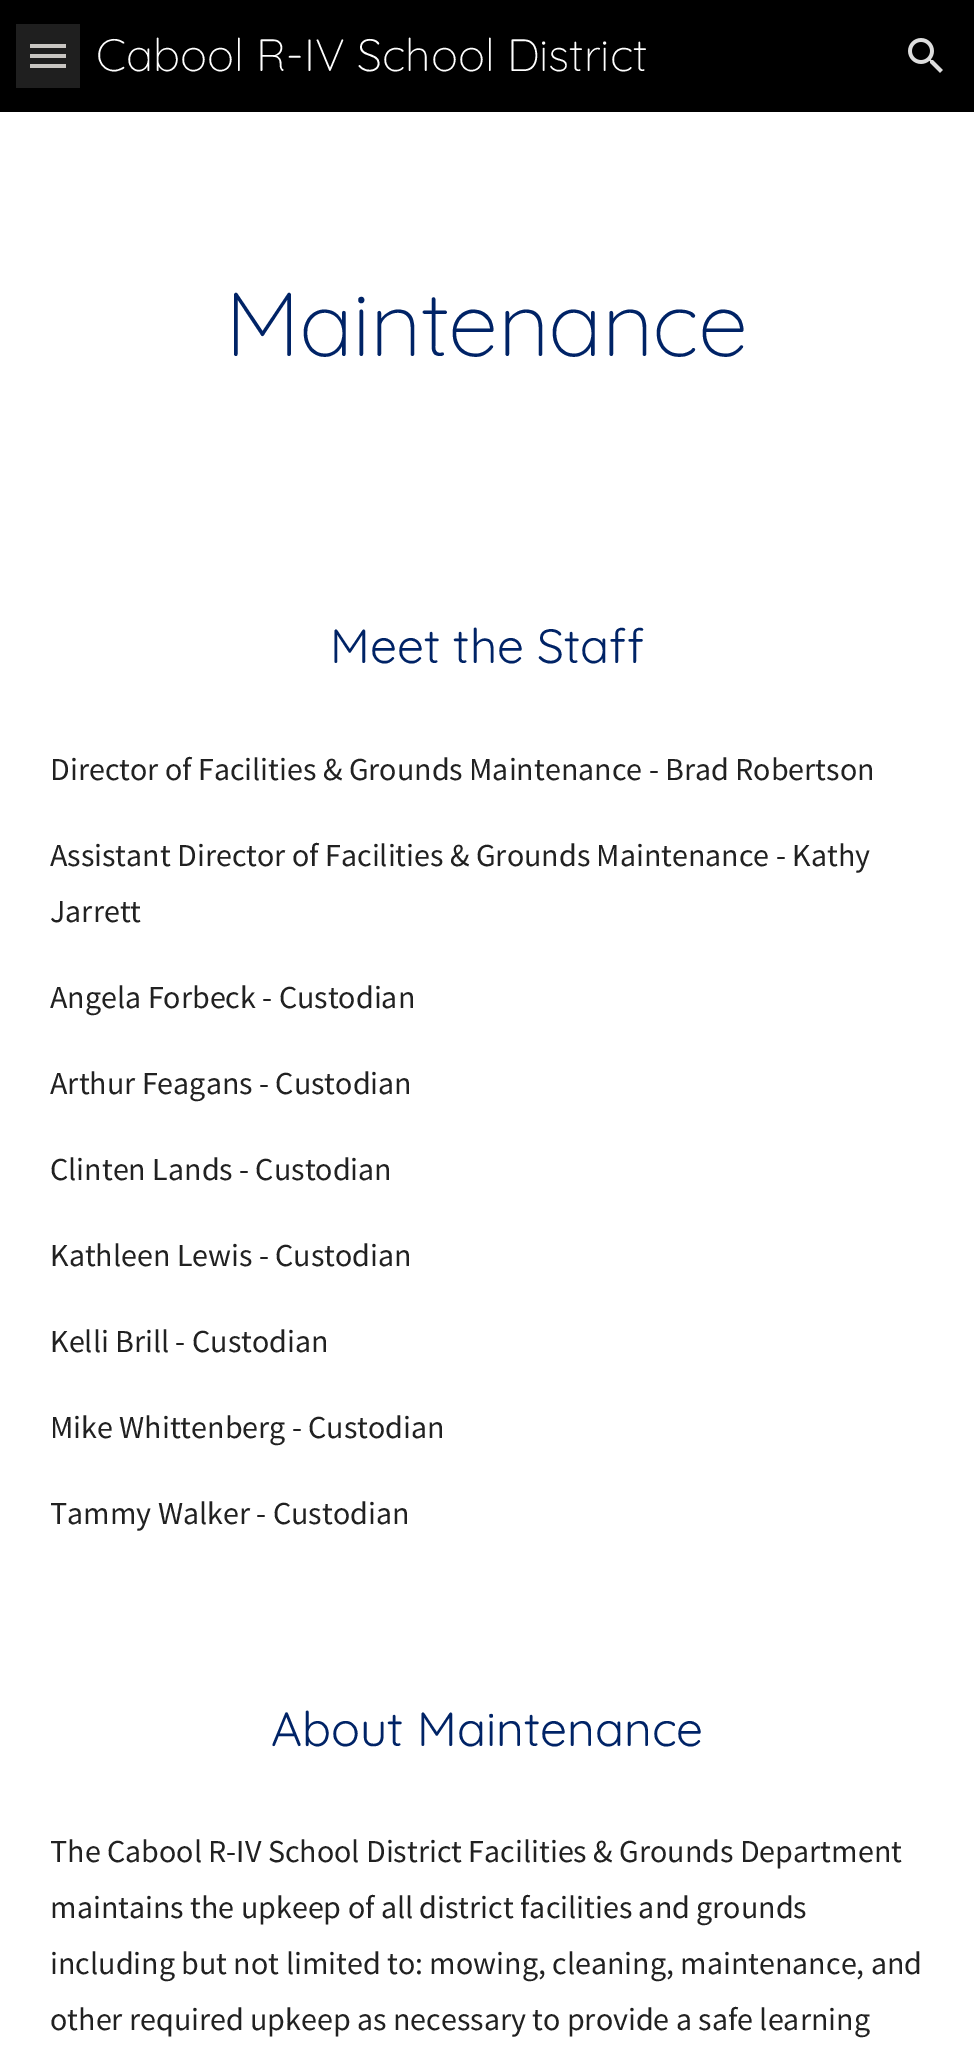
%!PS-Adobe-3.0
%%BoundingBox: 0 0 974 2047
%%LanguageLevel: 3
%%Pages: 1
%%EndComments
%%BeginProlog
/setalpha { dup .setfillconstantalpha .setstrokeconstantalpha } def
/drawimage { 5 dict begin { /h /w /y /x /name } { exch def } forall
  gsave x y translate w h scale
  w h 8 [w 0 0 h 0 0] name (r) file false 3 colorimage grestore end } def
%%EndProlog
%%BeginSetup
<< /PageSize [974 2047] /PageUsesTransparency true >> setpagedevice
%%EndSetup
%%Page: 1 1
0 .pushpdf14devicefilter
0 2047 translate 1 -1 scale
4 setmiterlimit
1 setgray
0 0 974 2047 rectfill
0 setgray
0 0 974 112 rectfill
0.753 0.741 0.722 setrgbcolor
30 44 36 4 rectfill
30 54 36 4 rectfill
30 64 36 4 rectfill
0.12 setalpha
1 setgray
16 24 64 64 rectfill
1 setalpha
(images/1.raw) 908 38 35 35 drawimage
/Quicksand-Light [45.25 0 0 -45.25 0 0] selectfont
96 71 moveto (Cabool R-IV School District) show
/Quicksand-Light [90.5 0 0 -90.5 0 0] selectfont
0 0.137 0.4 setrgbcolor
225 356 moveto -1 0 (Maintenance) ashow
/Quicksand-Regular [48 0 0 -48 0 0] selectfont
330 663 moveto (Meet the Staff) show
/SourceSansPro-Regular [32 0 0 -32 0 0] selectfont
0.129 setgray
50 780 moveto (Director of Facilities & Grounds Maintenance - Brad Robertson) show
50 866 moveto (Assistant Director of Facilities & Grounds Maintenance - Kathy) show
50 922 moveto (Jarrett) show
50 1008 moveto (Angela Forbeck - Custodian) show
50 1094 moveto (Arthur Feagans - Custodian) show
50 1180 moveto (Clinten Lands - Custodian) show
50 1266 moveto (Kathleen Lewis - Custodian) show
50 1352 moveto (Kelli Brill - Custodian) show
50 1438 moveto (Mike Whittenberg - Custodian) show
50 1524 moveto (Tammy Walker - Custodian) show
/Quicksand-Regular [48 0 0 -48 0 0] selectfont
0 0.137 0.4 setrgbcolor
271 1746 moveto (About Maintenance) show
/SourceSansPro-Regular [32 0 0 -32 0 0] selectfont
0.129 setgray
50 1862 moveto (The Cabool R-IV School District Facilities & Grounds Department) show
50 1918 moveto (maintains the upkeep of all district facilities and grounds) show
50 1974 moveto (including but not limited to: mowing, cleaning, maintenance, and) show
50 2030 moveto (other required upkeep as necessary to provide a safe learning) show
.poppdf14devicefilter showpage
%%EOF
